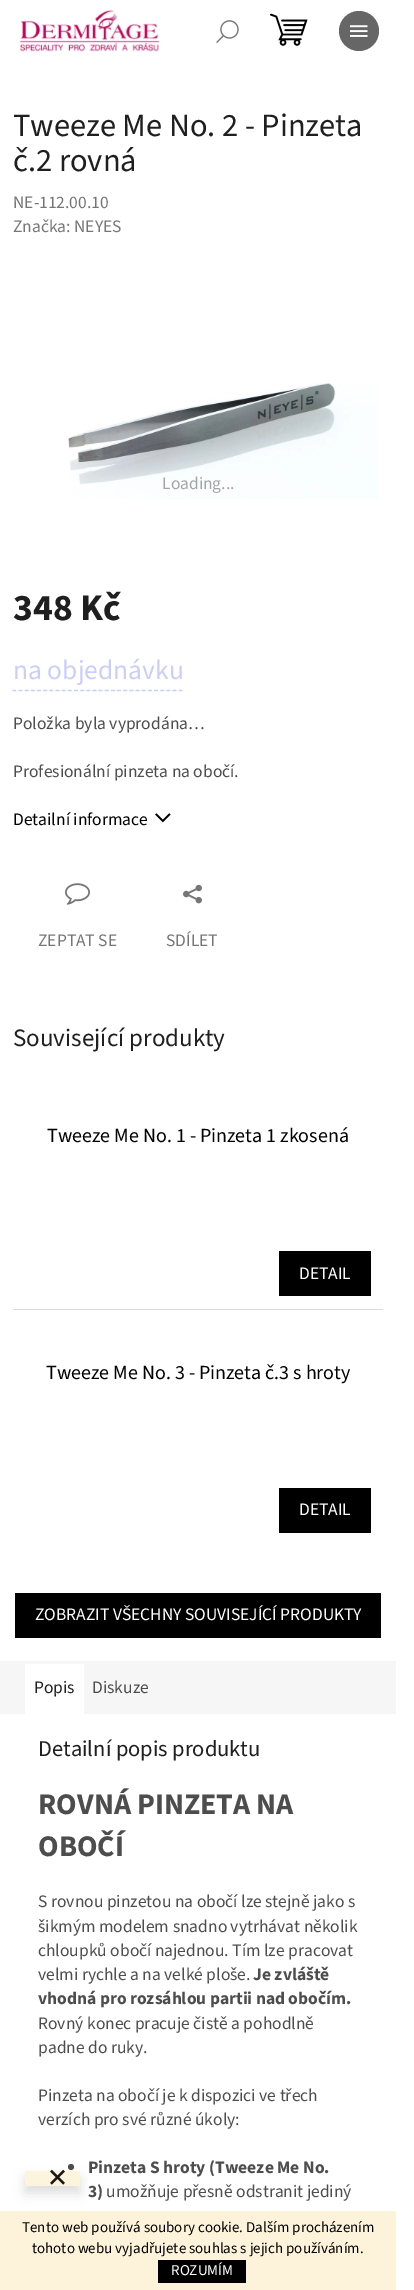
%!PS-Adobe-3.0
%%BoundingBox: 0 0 414 2290
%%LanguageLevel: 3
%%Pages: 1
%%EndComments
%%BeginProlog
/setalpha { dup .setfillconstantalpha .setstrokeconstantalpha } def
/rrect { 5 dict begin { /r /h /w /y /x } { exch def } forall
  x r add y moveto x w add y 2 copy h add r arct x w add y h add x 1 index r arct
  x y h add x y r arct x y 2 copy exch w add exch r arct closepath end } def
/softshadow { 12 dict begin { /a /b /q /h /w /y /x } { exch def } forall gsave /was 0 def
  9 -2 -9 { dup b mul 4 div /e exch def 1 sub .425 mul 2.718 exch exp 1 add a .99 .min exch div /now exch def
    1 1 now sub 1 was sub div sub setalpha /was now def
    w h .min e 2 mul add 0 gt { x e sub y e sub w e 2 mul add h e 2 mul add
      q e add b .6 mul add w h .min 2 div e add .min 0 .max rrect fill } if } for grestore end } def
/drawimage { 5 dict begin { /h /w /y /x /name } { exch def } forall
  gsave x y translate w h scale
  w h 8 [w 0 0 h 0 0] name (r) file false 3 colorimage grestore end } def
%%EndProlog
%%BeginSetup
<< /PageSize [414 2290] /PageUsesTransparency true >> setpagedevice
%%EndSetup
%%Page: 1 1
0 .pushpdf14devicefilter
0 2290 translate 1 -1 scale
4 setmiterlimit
1 setgray
0 0 414 2290 rectfill
(images/1.raw) 20 10 140 42 drawimage
(images/2.raw) 270 13 38 33 drawimage
(images/3.raw) 216 20 23 23 drawimage
0.4 setgray
newpath 359 31 20 0 360 arc closepath fill
(images/4.raw) 350 25 18 12 drawimage
(images/5.raw) 68 383 310 116 drawimage
0.796 0.808 0.984 setrgbcolor
1.2 setlinewidth
[3.75 2.41] 0 setdash
newpath 12.5 690.5 moveto 182.5 690.5 lineto stroke
(images/6.raw) 155 813 16 10 drawimage
(images/7.raw) 65 883 25 22 drawimage
(images/8.raw) 183 884 19 20 drawimage
0 setgray
279 1251 92 45 rectfill
0.855 setgray
13 1309 371 1 rectfill
1 setgray
383 1309 1 1 rectfill
0 setgray
279 1488 92 45 rectfill
15 1593 366 45 rectfill
0.965 setgray
0 1661 396 53 rectfill
1 setgray
25 1664 59 50 rectfill
0.302 setgray
newpath 71 2167 3 0 360 arc closepath fill
0 setgray
25 2178 55 15 0 6 0.14 softshadow
0.992 0.957 0.871 setrgbcolor
25 2171 55 15 rectfill
(images/9.raw) 50 2169 15 16 drawimage
0.992 0.953 0.855 setrgbcolor
0 2211 396 79 rectfill
0 setgray
158 2260 88 23 rectfill
/SourceSans3-Regular [32.5 0 0 -32.5 0 0] selectfont
0.122 setgray
13 136 moveto (Tweeze Me No. 2 - Pinzeta) show
13 171 moveto (č.2 rovná) show
/SourceSans3-Regular [17.5 0 0 -17.5 0 0] selectfont
0.463 setgray
13 208 moveto (NE-112.00.10) show
13 232 moveto (Značka: NEYES) show
0.643 0.647 0.651 setrgbcolor
162 489 moveto (Loading...) show
/SourceSans3-Bold [37.5 0 0 -37.5 0 0] selectfont
0.122 setgray
13 620 moveto (348 Kč) show
/SourceSans3-Regular [27.5 0 0 -27.5 0 0] selectfont
0.796 0.808 0.984 setrgbcolor
13 679 moveto (na objednávku) show
/SourceSans3-Regular [17.5 0 0 -17.5 0 0] selectfont
0.302 setgray
13 729 moveto (Položka byla vyprodána…) show
13 777 moveto (Profesionální pinzeta na obočí.) show
0 setgray
13 825 moveto (Detailní informace) show
0.463 setgray
38 946 moveto (ZEPTAT SE) show
166 946 moveto (SDÍLET) show
/SourceSans3-Regular [25 0 0 -25 0 0] selectfont
0.122 setgray
13 1046 moveto (Související produkty) show
/SourceSans3-Regular [20 0 0 -20 0 0] selectfont
0 setgray
47 1142 moveto (Tweeze Me No. 1 - Pinzeta 1 zkosená) show
/SourceSans3-Regular [17.5 0 0 -17.5 0 0] selectfont
1 setgray
299 1279 moveto (DETAIL) show
/SourceSans3-Regular [20 0 0 -20 0 0] selectfont
0 setgray
46 1379 moveto (Tweeze Me No. 3 - Pinzeta č.3 s hroty) show
/SourceSans3-Regular [17.5 0 0 -17.5 0 0] selectfont
1 setgray
299 1515 moveto (DETAIL) show
35 1620 moveto (ZOBRAZIT VŠECHNY SOUVISEJÍCÍ PRODUKTY) show
0.122 setgray
34 1693 moveto (Popis) show
0.302 setgray
92 1693 moveto (Diskuze) show
/SourceSans3-Regular [22.5 0 0 -22.5 0 0] selectfont
0.122 setgray
38 1756 moveto (Detailní popis produktu) show
/SourceSans3-Bold [30 0 0 -30 0 0] selectfont
0.302 setgray
38 1814 moveto (ROVNÁ PINZETA NA) show
38 1856 moveto (OBOČÍ) show
/SourceSans3-Regular [17.5 0 0 -17.5 0 0] selectfont
38 1907 moveto (S rovnou pinzetou na obočí lze stejně jako s) show
38 1932 moveto (šikmým modelem snadno vytrhávat několik) show
38 1956 moveto (chloupků obočí najednou. Tím lze pracovat) show
38 1980 moveto (velmi rychle a na velké ploše.) show
/SourceSans3-Bold [17.5 0 0 -17.5 0 0] selectfont
253 1980 moveto (Je zvláště) show
38 2004 moveto (vhodná pro rozsáhlou partii nad obočím.) show
/SourceSans3-Regular [17.5 0 0 -17.5 0 0] selectfont
38 2029 moveto (Rovný konec pracuje čistě a pohodlně) show
38 2053 moveto (padne do ruky.) show
38 2101 moveto (Pinzeta na obočí je k dispozici ve třech) show
38 2125 moveto (verzích pro své různé úkoly:) show
/SourceSans3-Bold [17.5 0 0 -17.5 0 0] selectfont
88 2173 moveto (Pinzeta S hroty \(Tweeze Me No.) show
88 2197 moveto (3\)) show
/SourceSans3-Regular [17.5 0 0 -17.5 0 0] selectfont
106 2197 moveto (umožňuje přesně odstranit jediný) show
/SourceSans3-Regular [15 0 0 -15 0 0] selectfont
0 setgray
22 2232 moveto (Tento web používá soubory cookie. Dalším procházením) show
32 2253 moveto (tohoto webu vyjadřujete souhlas s jejich používáním.) show
1 setgray
171 2275 moveto (ROZUMÍM) show
.poppdf14devicefilter showpage
%%EOF
